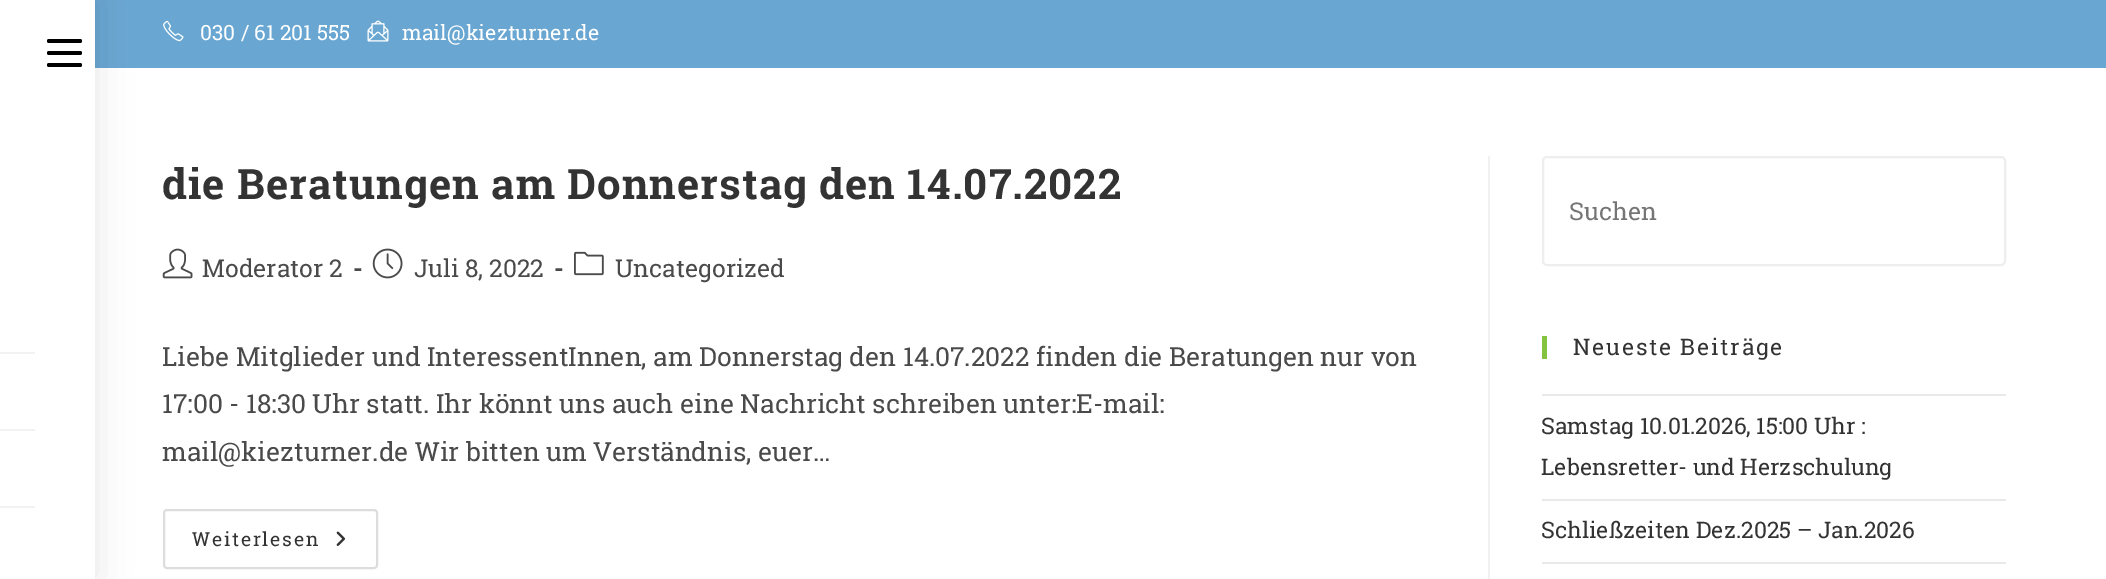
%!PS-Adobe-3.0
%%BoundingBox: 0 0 2106 579
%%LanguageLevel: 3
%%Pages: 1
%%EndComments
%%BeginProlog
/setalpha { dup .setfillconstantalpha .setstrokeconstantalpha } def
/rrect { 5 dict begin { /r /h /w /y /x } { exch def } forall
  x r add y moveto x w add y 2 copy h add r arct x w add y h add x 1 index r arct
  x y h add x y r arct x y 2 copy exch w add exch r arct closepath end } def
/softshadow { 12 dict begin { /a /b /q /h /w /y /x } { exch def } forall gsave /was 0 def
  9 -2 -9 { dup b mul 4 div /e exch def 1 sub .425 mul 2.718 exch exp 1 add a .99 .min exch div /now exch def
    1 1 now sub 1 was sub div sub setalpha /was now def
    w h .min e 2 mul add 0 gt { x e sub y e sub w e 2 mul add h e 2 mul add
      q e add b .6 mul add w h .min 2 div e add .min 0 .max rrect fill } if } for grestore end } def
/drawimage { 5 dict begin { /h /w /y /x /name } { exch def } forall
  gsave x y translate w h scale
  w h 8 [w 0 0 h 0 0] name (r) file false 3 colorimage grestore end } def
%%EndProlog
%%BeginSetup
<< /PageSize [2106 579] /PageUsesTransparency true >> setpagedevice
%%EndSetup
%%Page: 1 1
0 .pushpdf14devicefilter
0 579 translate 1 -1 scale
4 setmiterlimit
1 setgray
0 0 2106 579 rectfill
0.412 0.655 0.824 setrgbcolor
95 0 2011 68 rectfill
0 setgray
-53 0 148 579 0 17.5 0.1 softshadow
1 setgray
0 0 95 579 rectfill
0 setgray
47 51 35 4 2 rrect fill
47 39 35 4 2 rrect fill
47 63 35 4 2 rrect fill
0.949 setgray
0 352 35 2 rectfill
0 429 35 2 rectfill
0 506 35 2 rectfill
(images/1.raw) 163 20 21 22 drawimage
(images/2.raw) 367 20 22 22 drawimage
0.945 setgray
1488 156 2 423 rectfill
(images/3.raw) 162 248 31 31 drawimage
(images/4.raw) 372 248 31 31 drawimage
(images/5.raw) 574 251 30 25 drawimage
0.867 setgray
2 setlinewidth
164 510 213 58 3 rrect stroke
(images/6.raw) 336 531 10 15 drawimage
0.933 setgray
1543 157 462 108 4 rrect stroke
0.518 0.765 0.251 setrgbcolor
1542 336 5 23 rectfill
0.914 setgray
1542 394 464 2 rectfill
1542 499 464 2 rectfill
1542 562 464 2 rectfill
/RobotoSlab-Regular [21 0 0 -21 0 0] selectfont
1 setgray
200 40 moveto (030 / 61 201 555) show
402 40 moveto (mail@kiezturner.de) show
/RobotoSlab-Bold [42 0 0 -42 0 0] selectfont
0.2 setgray
162 199 moveto 1.05 0 (die Beratungen am Donnerstag den 14.07.2022) ashow
/RobotoSlab-Regular [24.5 0 0 -24.5 0 0] selectfont
0.29 setgray
202 277 moveto (Moderator 2) show
/RobotoSlab-Bold [24.5 0 0 -24.5 0 0] selectfont
353 277 moveto (-) show
/RobotoSlab-Regular [24.5 0 0 -24.5 0 0] selectfont
414 277 moveto (Juli 8, 2022) show
/RobotoSlab-Bold [24.5 0 0 -24.5 0 0] selectfont
554 277 moveto (-) show
/RobotoSlab-Regular [24.5 0 0 -24.5 0 0] selectfont
615 277 moveto (Uncategorized) show
/RobotoSlab-Regular [26.25 0 0 -26.25 0 0] selectfont
162 366 moveto (Liebe Mitglieder und InteressentInnen, am Donnerstag den 14.07.2022 finden die Beratungen nur von) show
162 413 moveto (17:00 - 18:30 Uhr statt. Ihr könnt uns auch eine Nachricht schreiben unter:E-mail:) show
162 461 moveto (mail@kiezturner.de Wir bitten um Verständnis, euer…) show
/RobotoSlab-Regular [19.25 0 0 -19.25 0 0] selectfont
0.2 setgray
192 546 moveto 1.75 0 (Weiterlesen) ashow
/RobotoSlab-Regular [24.5 0 0 -24.5 0 0] selectfont
0.459 setgray
1569 220 moveto (Suchen) show
/RobotoSlab-Regular [22.75 0 0 -22.75 0 0] selectfont
0.2 setgray
1573 355 moveto 1.75 0 (Neueste Beiträge) ashow
1541 434 moveto (Samstag 10.01.2026, 15:00 Uhr :) show
1541 475 moveto (Lebensretter- und Herzschulung) show
1541 538 moveto (Schließzeiten Dez.2025 – Jan.2026) show
.poppdf14devicefilter showpage
%%EOF
